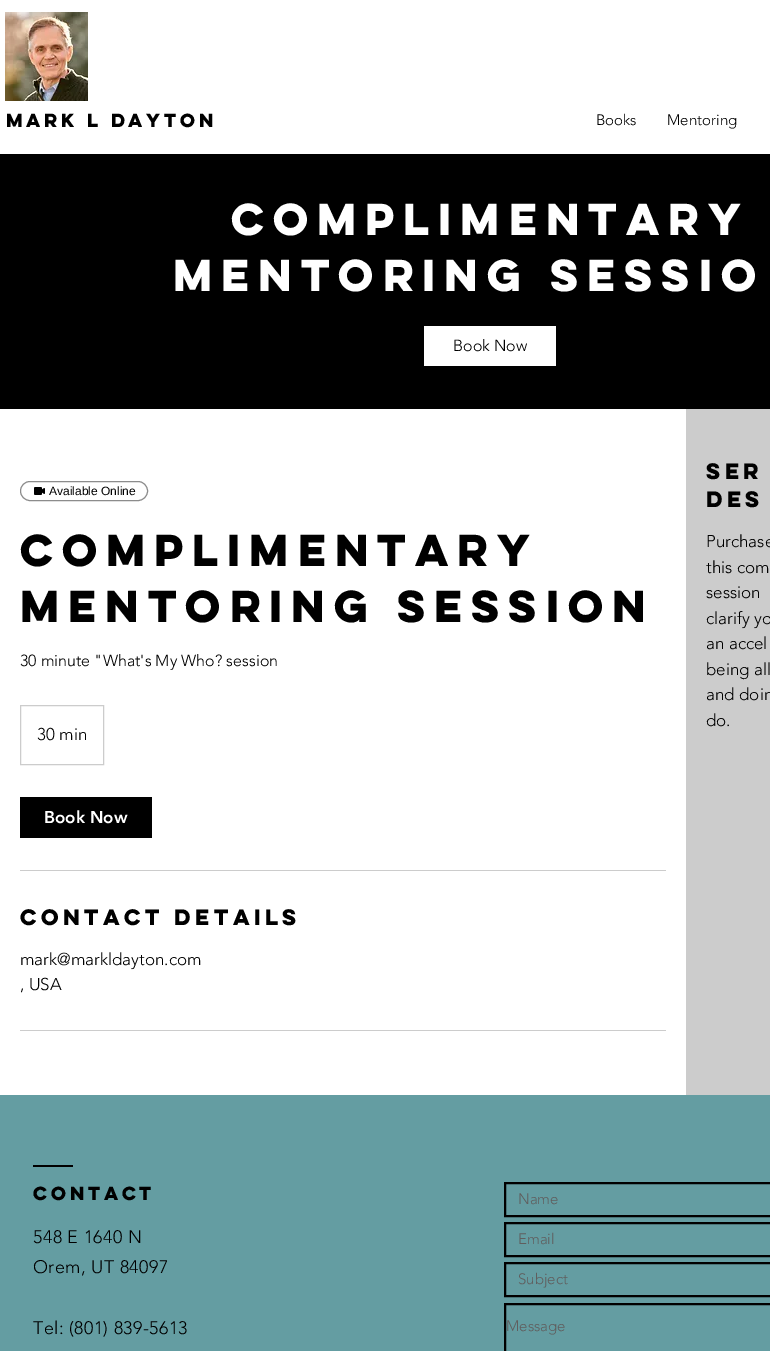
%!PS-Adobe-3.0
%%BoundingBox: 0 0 770 1351
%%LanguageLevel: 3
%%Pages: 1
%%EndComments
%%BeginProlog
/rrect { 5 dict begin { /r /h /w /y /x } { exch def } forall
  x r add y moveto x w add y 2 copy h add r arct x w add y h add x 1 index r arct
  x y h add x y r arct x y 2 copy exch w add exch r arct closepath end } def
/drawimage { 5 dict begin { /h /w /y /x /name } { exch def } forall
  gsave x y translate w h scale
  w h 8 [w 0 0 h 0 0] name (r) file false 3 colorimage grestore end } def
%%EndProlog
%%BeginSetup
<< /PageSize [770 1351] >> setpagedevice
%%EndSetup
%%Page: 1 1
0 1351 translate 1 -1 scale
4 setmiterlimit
1 setgray
0 0 770 1351 rectfill
(images/1.raw) 5 12 83 89 drawimage
0 setgray
0 154 770 255 rectfill
1 setgray
424 326 132 40 rectfill
0.549 setgray
20.5 481.5 127 19 9.5 rrect stroke
(images/2.raw) 34 487 11 8 drawimage
0.8 setgray
20.5 705.5 83 59 rectstroke
0 setgray
20 797 132 41 rectfill
0.8 setgray
20 870 646 1 rectfill
20 1030 646 1 rectfill
686 409 84 686 rectfill
0.392 0.616 0.635 setrgbcolor
0 1095 770 256 rectfill
0 setgray
33 1165 40 2 rectfill
2 setlinewidth
505 1183 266 33 rectstroke
505 1223 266 33 rectstroke
505 1263 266 33 rectstroke
505 1304 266 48 rectstroke
/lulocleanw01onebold-Bold [17 0 0 -17 0 0] selectfont
6 127 moveto (Mark L Dayton) show
/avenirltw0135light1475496-Light [15 0 0 -15 0 0] selectfont
596 125 moveto (Books) show
667 125 moveto (Mentoring) show
/lulocleanw01onebold-Bold [40 0 0 -40 0 0] selectfont
1 setgray
231 235 moveto (Complimentary) show
173 291 moveto (Mentoring Sessio) show
/avenirltw0135light1475496-Light [16 0 0 -16 0 0] selectfont
0 setgray
453 351 moveto (Book Now) show
/LiberationSans-Regular [12 0 0 -12 0 0] selectfont
49 495 moveto (Available Online) show
/lulocleanw01onebold-Bold [40 0 0 -40 0 0] selectfont
20 566 moveto (Complimentary) show
20 622 moveto (Mentoring Session) show
/avenirltw0135light1475496-Light [16 0 0 -16 0 0] selectfont
20 666 moveto (30 minute "What's My Who? session) show
/avenirltw0135light1475496-Light [17 0 0 -17 0 0] selectfont
37 740 moveto (30 min) show
/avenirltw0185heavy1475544-Black [17 0 0 -17 0 0] selectfont
1 setgray
44 823 moveto (Book Now) show
/lulocleanw01onebold-Bold [20 0 0 -20 0 0] selectfont
0 setgray
20 925 moveto (Contact Details) show
/avenirltw0135light1475496-Light [17 0 0 -17 0 0] selectfont
20 965 moveto (mark@markldayton.com) show
20 990 moveto (, USA) show
/lulocleanw01onebold-Bold [20 0 0 -20 0 0] selectfont
706 479 moveto (Ser) show
706 507 moveto (Des) show
/avenirltw0135light1475496-Light [17 0 0 -17 0 0] selectfont
706 547 moveto (Purchase) show
706 573 moveto (this com) show
706 598 moveto (session) show
706 624 moveto (clarify yo) show
706 649 moveto (an accel) show
706 675 moveto (being all) show
706 700 moveto (and doin) show
706 726 moveto (do.) show
/lulocleanw01onebold-Bold [17 0 0 -17 0 0] selectfont
33 1200 moveto (Contact) show
/avenirltw0135light1475496-Light [15 0 0 -15 0 0] selectfont
0.376 0.369 0.369 setrgbcolor
518 1204 moveto (Name) show
518 1244 moveto (Email) show
518 1284 moveto (Subject) show
506 1331 moveto (Message) show
/avenirltw0135light1475496-Light [18 0 0 -18 0 0] selectfont
0 setgray
33 1243 moveto 0.4 0 (548 E 1640 N) ashow
33 1273 moveto 0.4 0 (Orem, UT 84097) ashow
33 1334 moveto 0.4 0 (Tel: \(801\) 839-5613) ashow
showpage
%%EOF
